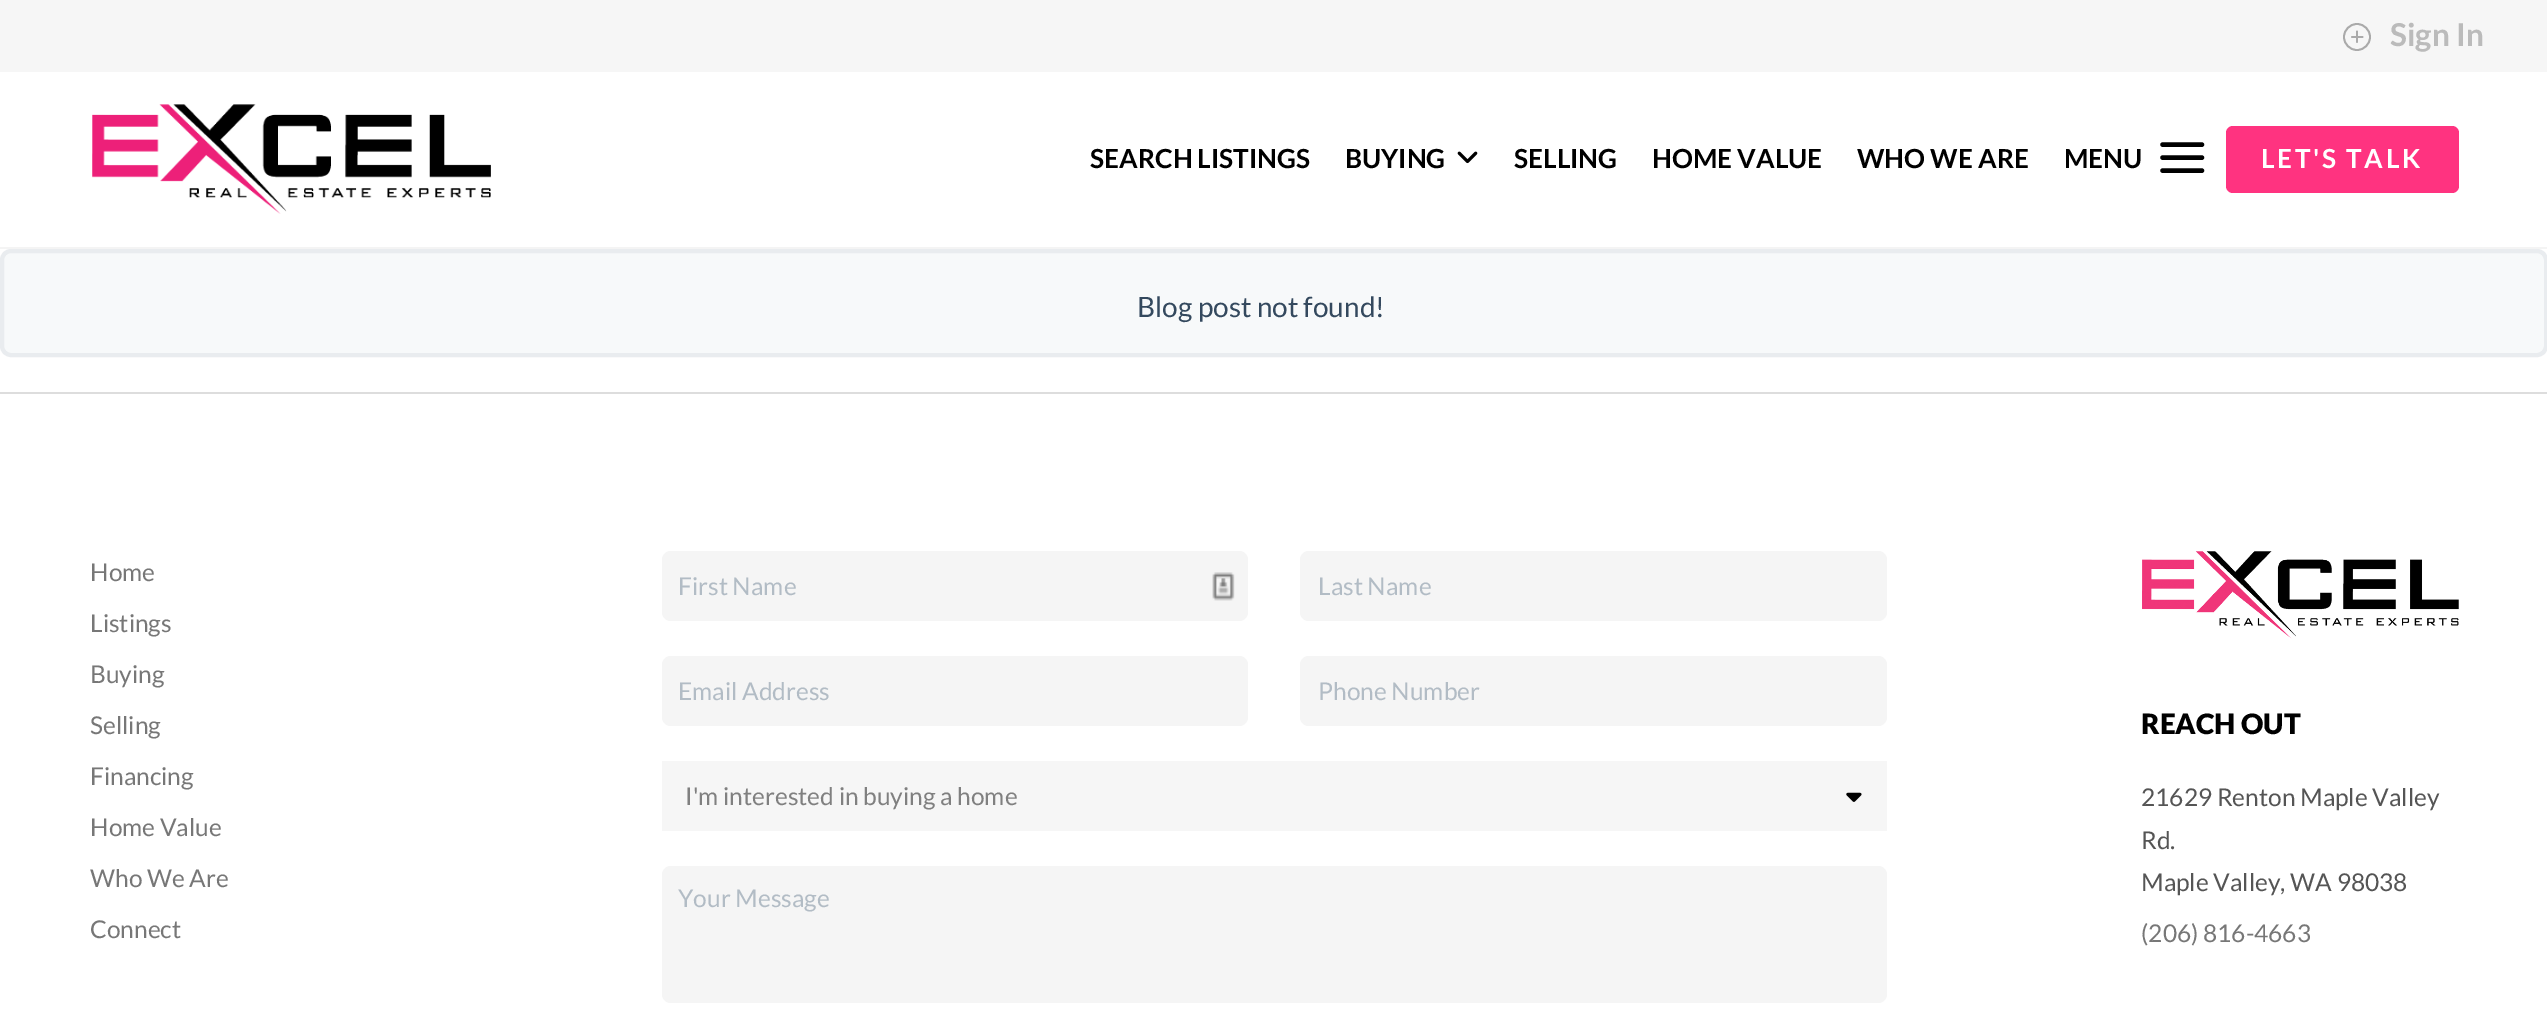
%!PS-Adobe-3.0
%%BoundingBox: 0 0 2547 1013
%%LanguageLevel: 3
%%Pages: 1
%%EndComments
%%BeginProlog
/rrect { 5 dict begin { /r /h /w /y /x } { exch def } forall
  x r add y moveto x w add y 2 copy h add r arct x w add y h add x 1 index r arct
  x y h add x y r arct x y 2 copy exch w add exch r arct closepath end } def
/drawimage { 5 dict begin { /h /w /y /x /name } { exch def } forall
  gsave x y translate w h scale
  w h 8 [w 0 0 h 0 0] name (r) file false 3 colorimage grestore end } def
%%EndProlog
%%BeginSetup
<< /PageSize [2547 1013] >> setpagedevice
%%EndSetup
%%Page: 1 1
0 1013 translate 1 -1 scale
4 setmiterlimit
1 setgray
0 0 2547 1013 rectfill
0.965 setgray
0 0 2547 72 rectfill
0.667 setgray
1.8 setlinewidth
newpath 2357 37 13 0 360 arc closepath stroke
1 setlinecap
1 setlinejoin
newpath 2357 31.5 moveto 2357 42 lineto 2352 37 moveto 2362.5 37 lineto stroke
0.957 setgray
0 247 2547 2 rectfill
(images/1.raw) 92 104 399 110 drawimage
(images/2.raw) 1457 151 21 13 drawimage
0 setgray
4.4 setlinewidth
newpath 2162.5 157.5 moveto 2202 157.5 lineto 2162.5 144.5 moveto 2202 144.5 lineto 2162.5 170.5 moveto 2202 170.5 lineto stroke
1 0.2 0.502 setrgbcolor
2226 126 233 67 7 rrect fill
0.969 0.976 0.98 setrgbcolor
2 251 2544 104 9 rrect gsave fill grestore
0.914 0.925 0.937 setrgbcolor
4 setlinewidth
0 setlinecap
0 setlinejoin
stroke
0.867 setgray
0 392 2547 2 rectfill
0.961 setgray
662 551 586 70 9 rrect fill
(images/3.raw) 1212 572 23 29 drawimage
1300 551 587 70 9 rrect fill
662 656 586 70 9 rrect fill
1300 656 587 70 9 rrect fill
0.965 setgray
662 761 1225 70 rectfill
(images/4.raw) 1846 792 16 10 drawimage
0.961 setgray
662 866 1225 137 9 rrect fill
(images/5.raw) 2142 551 317 88 drawimage
/Lato-Bold [31.5 0 0 -31.5 0 0] selectfont
0.733 setgray
2390 46 moveto (Sign In) show
/Lato-Bold [26.25 0 0 -26.25 0 0] selectfont
0 setgray
1090 168 moveto (SEARCH LISTINGS) show
1345 168 moveto (BUYING) show
1514 168 moveto (SELLING) show
1652 168 moveto (HOME VALUE) show
1857 168 moveto (WHO WE ARE) show
2064 168 moveto (MENU) show
1 setgray
2261 168 moveto 2.6 0 (LET'S TALK) ashow
/Lato-Regular [28 0 0 -28 0 0] selectfont
0.204 0.286 0.369 setrgbcolor
1137 317 moveto (Blog post not found!) show
/Lato-Regular [24.5 0 0 -24.5 0 0] selectfont
0.467 setgray
90 581 moveto (Home) show
90 632 moveto (Listings) show
90 683 moveto (Buying) show
90 734 moveto (Selling) show
90 785 moveto (Financing) show
90 836 moveto (Home Value) show
90 887 moveto (Who We Are) show
90 938 moveto (Connect) show
0.698 0.737 0.773 setrgbcolor
678 595 moveto (First Name) show
1318 595 moveto (Last Name) show
678 700 moveto (Email Address) show
1318 700 moveto (Phone Number) show
0.502 setgray
685 805 moveto (I'm interested in buying a home) show
0.698 0.737 0.773 setrgbcolor
678 907 moveto (Your Message) show
/Lato-Black [28 0 0 -28 0 0] selectfont
0 setgray
2141 734 moveto (REACH OUT) show
/Lato-Regular [24.5 0 0 -24.5 0 0] selectfont
0.333 setgray
2141 806 moveto (21629 Renton Maple Valley) show
2141 849 moveto (Rd.) show
2141 891 moveto (Maple Valley, WA 98038) show
0.467 setgray
2141 942 moveto (\(206\) 816-4663) show
showpage
%%EOF
